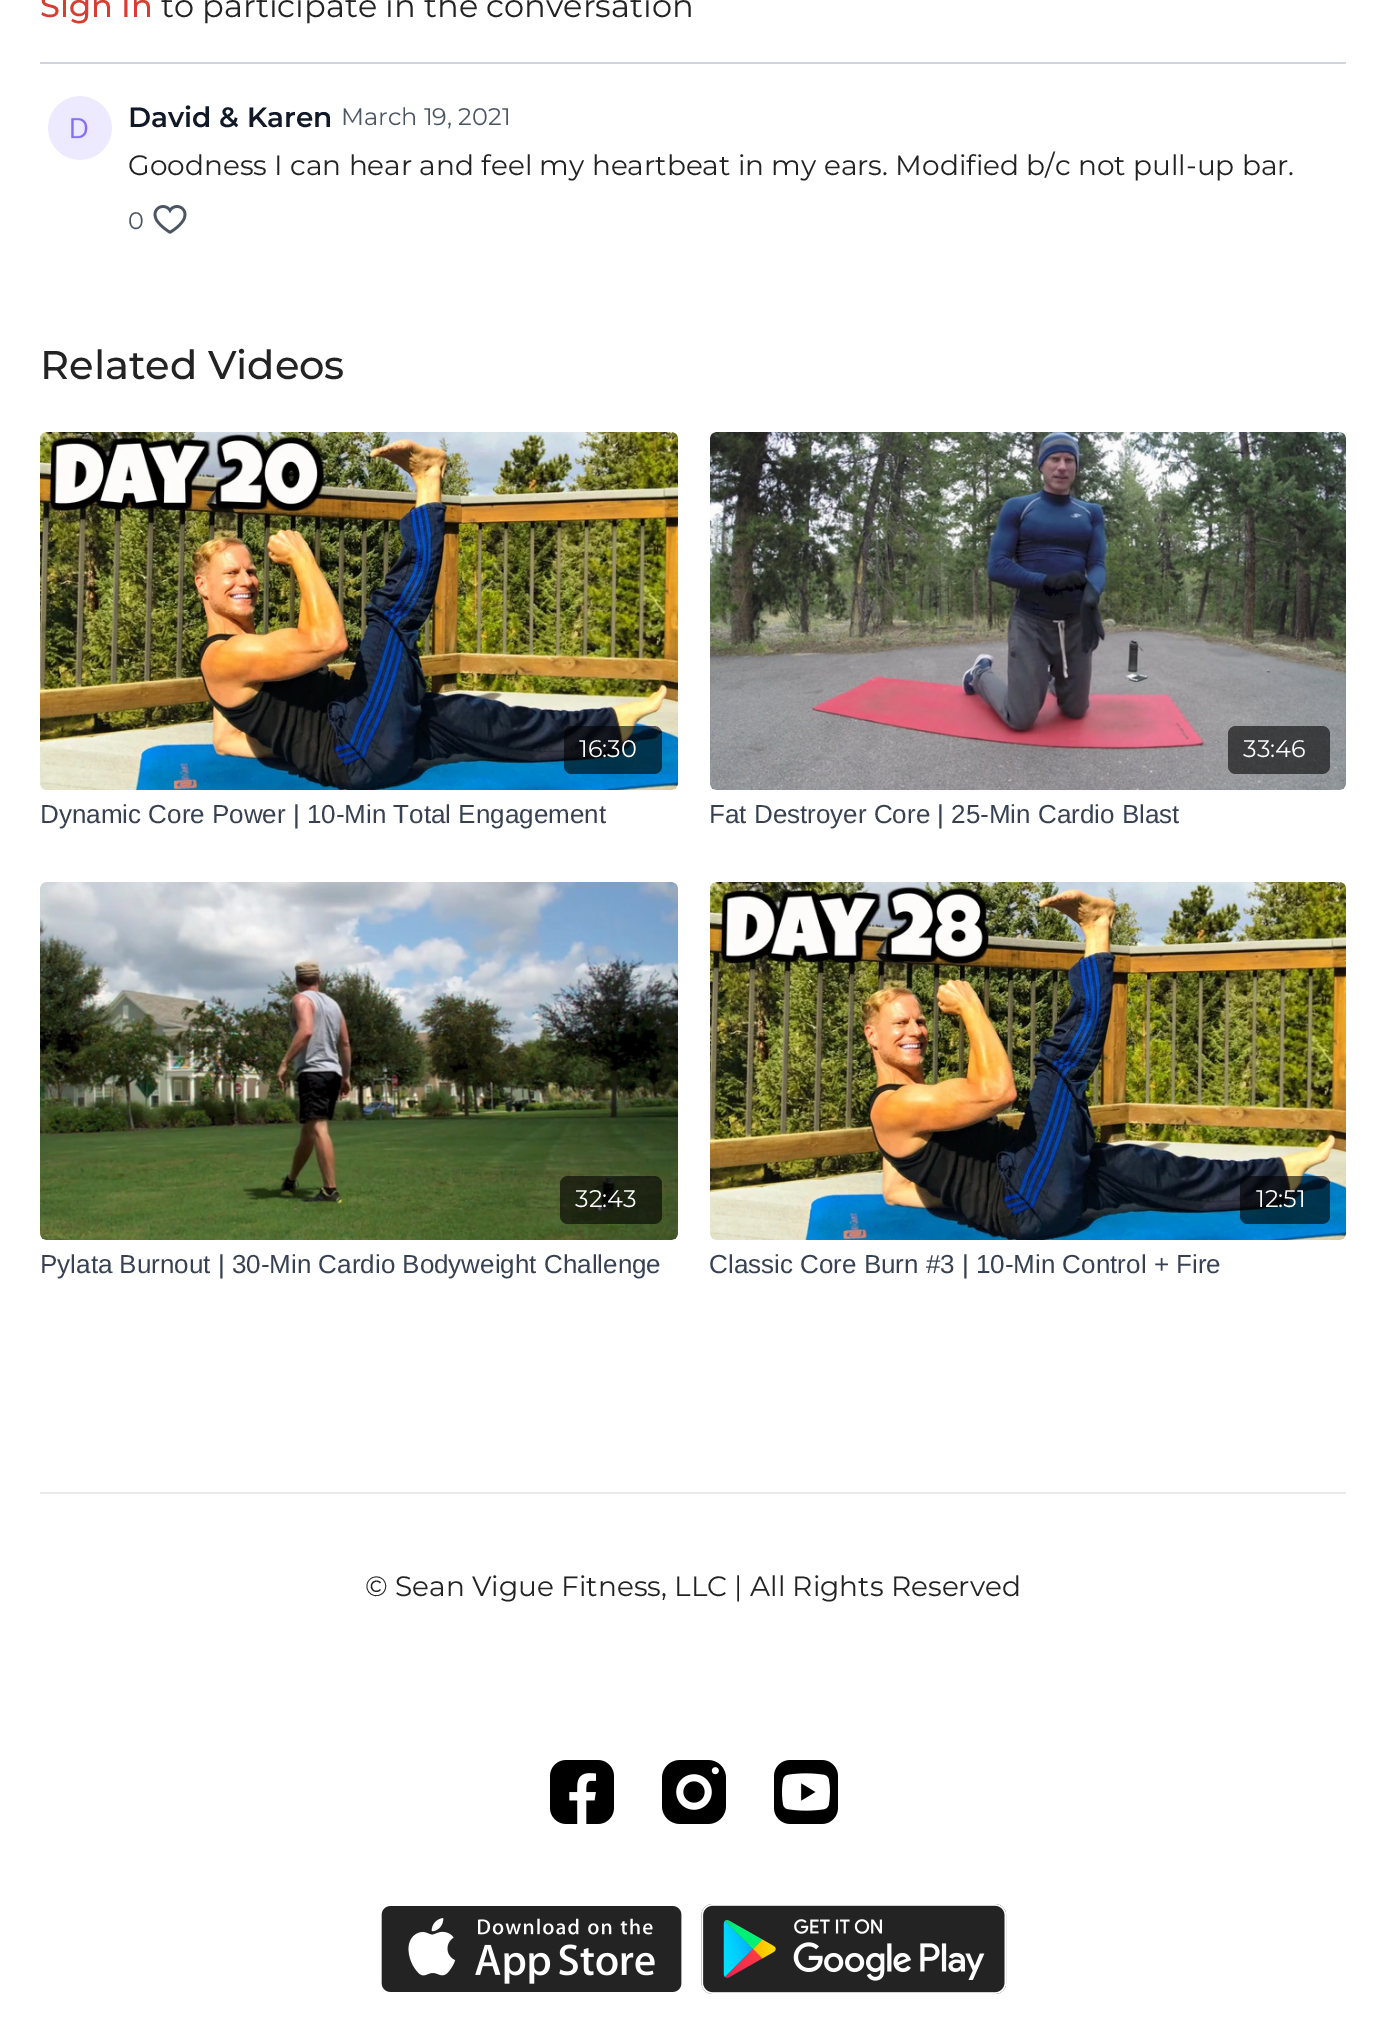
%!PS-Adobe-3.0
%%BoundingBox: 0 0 1386 2021
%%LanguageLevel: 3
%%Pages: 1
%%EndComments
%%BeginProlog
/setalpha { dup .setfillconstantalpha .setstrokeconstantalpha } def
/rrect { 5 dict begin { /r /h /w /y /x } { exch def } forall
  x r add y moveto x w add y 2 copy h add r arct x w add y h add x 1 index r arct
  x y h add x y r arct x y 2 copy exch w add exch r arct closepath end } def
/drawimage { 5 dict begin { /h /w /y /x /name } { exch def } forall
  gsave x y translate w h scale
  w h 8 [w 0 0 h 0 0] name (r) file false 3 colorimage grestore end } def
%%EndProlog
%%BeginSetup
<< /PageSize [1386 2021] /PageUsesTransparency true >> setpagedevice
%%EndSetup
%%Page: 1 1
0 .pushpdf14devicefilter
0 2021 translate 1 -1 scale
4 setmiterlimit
1 setgray
0 0 1386 2021 rectfill
0.82 0.835 0.859 setrgbcolor
40 62 1306 2 rectfill
(images/1.raw) 48 96 64 64 drawimage
(images/2.raw) 153 205 34 29 drawimage
(images/3.raw) 40 432 638 358 drawimage
0.6 setalpha
0 setgray
564 726 98 48 8 rrect fill
1 setalpha
(images/4.raw) 710 432 636 358 drawimage
0.6 setalpha
1228 726 102 48 8 rrect fill
1 setalpha
(images/5.raw) 40 882 638 358 drawimage
0.6 setalpha
560 1176 102 48 8 rrect fill
1 setalpha
(images/6.raw) 710 882 636 358 drawimage
0.6 setalpha
1240 1176 90 48 8 rrect fill
1 setalpha
0.914 setgray
40 1492 1306 2 rectfill
(images/7.raw) 550 1760 64 64 drawimage
(images/8.raw) 662 1760 64 64 drawimage
(images/9.raw) 774 1760 64 64 drawimage
(images/10.raw) 381 1906 301 86 drawimage
(images/11.raw) 701 1904 306 90 drawimage
/Montserrat-Medium [32 0 0 -32 0 0] selectfont
0.835 0.243 0.188 setrgbcolor
40 17 moveto (Sign In) show
/Montserrat-Regular [32 0 0 -32 0 0] selectfont
0.137 setgray
161 17 moveto (to participate in the conversation) show
/Montserrat-SemiBold [28 0 0 -28 0 0] selectfont
0.067 0.094 0.153 setrgbcolor
128 127 moveto (David & Karen) show
/Montserrat-Regular [24 0 0 -24 0 0] selectfont
0.294 0.333 0.388 setrgbcolor
341 125 moveto (March 19, 2021) show
/Montserrat-Regular [28 0 0 -28 0 0] selectfont
0.137 setgray
128 175 moveto (Goodness I can hear and feel my heartbeat in my ears. Modified b/c not pull-up bar.) show
/Montserrat-Regular [24 0 0 -24 0 0] selectfont
0.294 0.333 0.388 setrgbcolor
128 229 moveto (0) show
/Montserrat-Medium [40 0 0 -40 0 0] selectfont
0.137 setgray
40 379 moveto (Related Videos) show
/Montserrat-Regular [24 0 0 -24 0 0] selectfont
1 setgray
579 757 moveto (16:30) show
/LiberationSans-Regular [26 0 0 -26 0 0] selectfont
0.216 0.255 0.318 setrgbcolor
40 823 moveto (Dynamic Core Power | 10-Min Total Engagement) show
/Montserrat-Regular [24 0 0 -24 0 0] selectfont
1 setgray
1243 757 moveto (33:46) show
/LiberationSans-Regular [26 0 0 -26 0 0] selectfont
0.216 0.255 0.318 setrgbcolor
709 823 moveto (Fat Destroyer Core | 25-Min Cardio Blast) show
/Montserrat-Regular [24 0 0 -24 0 0] selectfont
1 setgray
575 1207 moveto (32:43) show
/LiberationSans-Regular [26 0 0 -26 0 0] selectfont
0.216 0.255 0.318 setrgbcolor
40 1273 moveto (Pylata Burnout | 30-Min Cardio Bodyweight Challenge) show
/Montserrat-Regular [24 0 0 -24 0 0] selectfont
1 setgray
1256 1207 moveto (12:51) show
/LiberationSans-Regular [26 0 0 -26 0 0] selectfont
0.216 0.255 0.318 setrgbcolor
709 1273 moveto (Classic Core Burn #3 | 10-Min Control + Fire) show
/Montserrat-Regular [28 0 0 -28 0 0] selectfont
0.137 setgray
365 1596 moveto (© Sean Vigue Fitness, LLC | All Rights Reserved) show
.poppdf14devicefilter showpage
%%EOF
